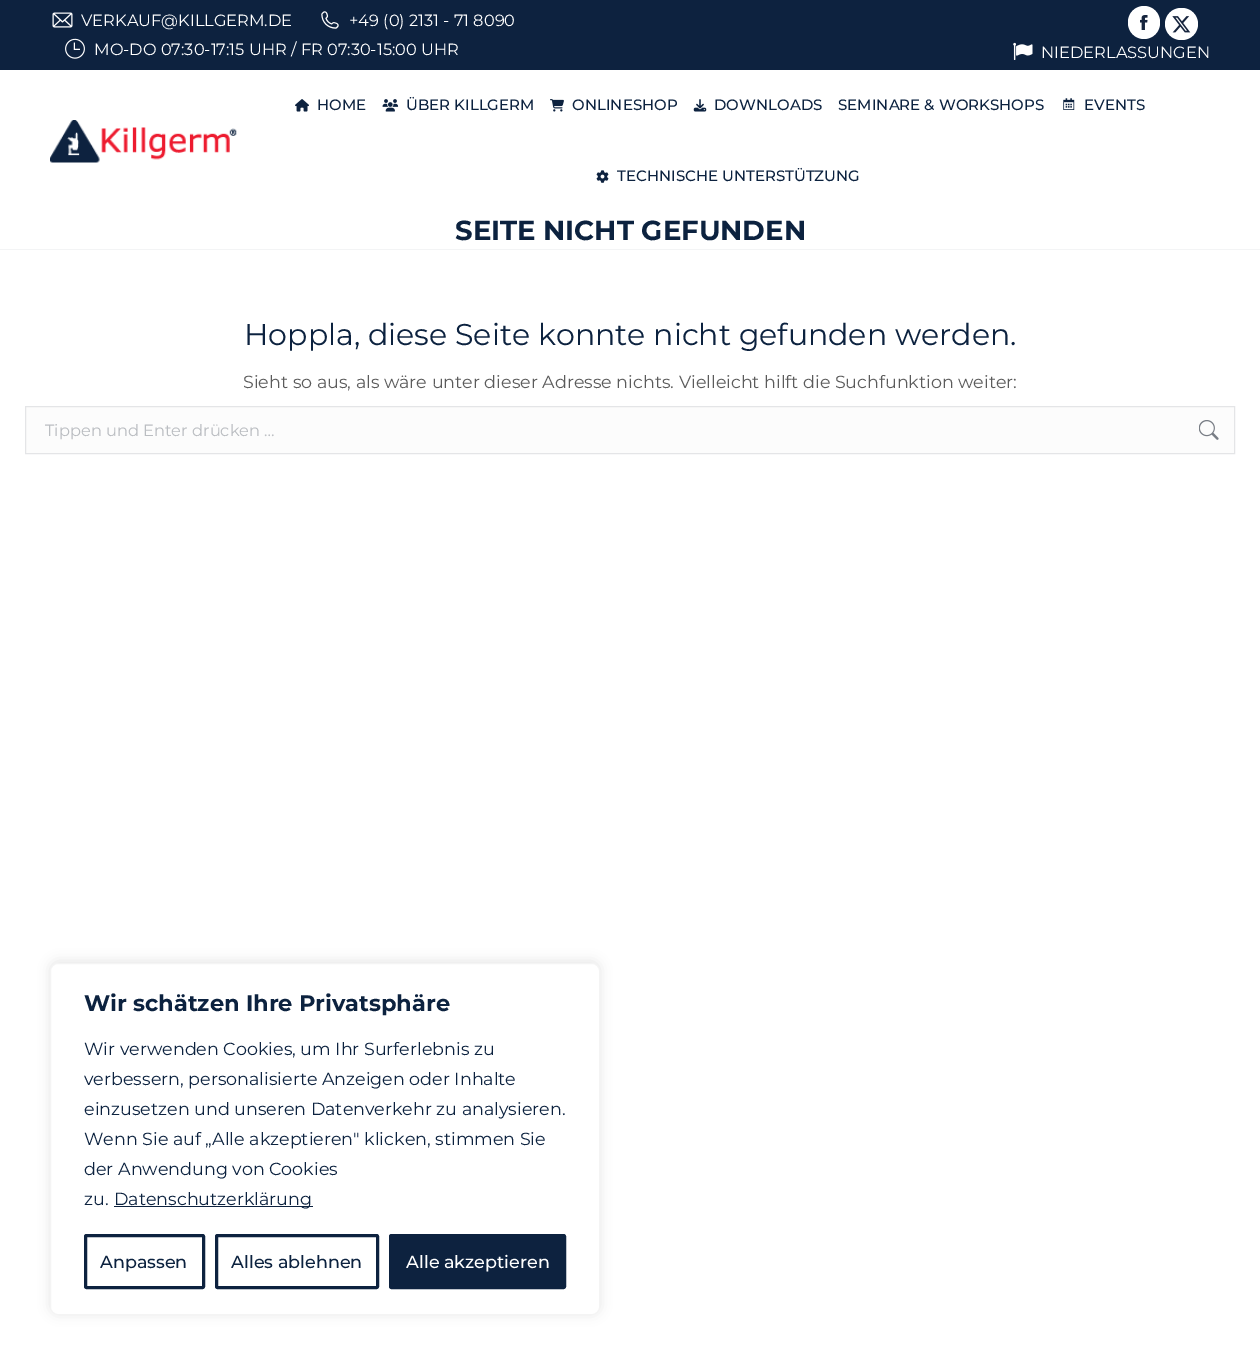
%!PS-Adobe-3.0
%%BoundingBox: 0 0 1260 1364
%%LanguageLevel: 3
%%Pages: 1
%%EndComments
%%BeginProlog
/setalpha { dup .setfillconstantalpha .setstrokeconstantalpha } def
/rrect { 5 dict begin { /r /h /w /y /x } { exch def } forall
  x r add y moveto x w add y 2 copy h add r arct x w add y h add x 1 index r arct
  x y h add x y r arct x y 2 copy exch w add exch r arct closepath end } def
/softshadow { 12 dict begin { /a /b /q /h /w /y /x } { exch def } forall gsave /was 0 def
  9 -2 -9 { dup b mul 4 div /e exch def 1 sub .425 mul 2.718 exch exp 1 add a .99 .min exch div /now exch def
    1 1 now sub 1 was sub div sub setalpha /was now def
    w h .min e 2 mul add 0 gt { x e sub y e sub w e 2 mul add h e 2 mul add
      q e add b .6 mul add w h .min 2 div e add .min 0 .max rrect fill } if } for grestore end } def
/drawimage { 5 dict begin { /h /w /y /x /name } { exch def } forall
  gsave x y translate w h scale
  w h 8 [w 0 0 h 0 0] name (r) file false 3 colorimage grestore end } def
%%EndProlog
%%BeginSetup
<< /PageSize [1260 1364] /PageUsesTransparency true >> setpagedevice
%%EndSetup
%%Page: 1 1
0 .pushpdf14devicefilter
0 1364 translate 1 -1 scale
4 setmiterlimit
1 setgray
0 0 1260 1364 rectfill
0.051 0.133 0.247 setrgbcolor
0 0 1260 70 rectfill
(images/1.raw) 52 12 21 16 drawimage
(images/2.raw) 321 11 18 18 drawimage
(images/3.raw) 65 38 20 21 drawimage
1 setgray
1128 6 32 33 16 rrect fill
(images/4.raw) 1140 15 8 15 drawimage
1165 8 33 32 16 rrect fill
(images/5.raw) 1172 16 19 17 drawimage
(images/6.raw) 1013 42 20 18 drawimage
(images/7.raw) 50 120 187 43 drawimage
(images/8.raw) 295 99 14 13 drawimage
(images/9.raw) 382 99 17 13 drawimage
(images/10.raw) 550 99 14 13 drawimage
(images/11.raw) 693 99 14 13 drawimage
(images/12.raw) 1063 98 12 12 drawimage
(images/13.raw) 596 170 13 13 drawimage
0.953 0.957 0.961 setrgbcolor
0 249 1260 1 rectfill
0.988 setgray
newpath 25.5 406.5 moveto 1234.5 406.5 lineto 1234.5 453.5 lineto 25.5 453.5 lineto closepath gsave fill grestore
0.894 0.898 0.906 setrgbcolor
stroke
(images/14.raw) 1199 420 20 20 drawimage
gsave
newpath 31 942 moveto 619 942 lineto 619 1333 lineto 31 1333 lineto closepath 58 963 moveto 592 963 lineto 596.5 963 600 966.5 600 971 curveto 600 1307 lineto 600 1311.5 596.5 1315 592 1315 curveto 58 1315 lineto 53.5 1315 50 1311.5 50 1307 curveto 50 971 lineto 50 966.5 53.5 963 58 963 curveto closepath eoclip newpath
0.675 0.671 0.671 setrgbcolor
50 961 550 353 8 6 0.3 softshadow
grestore
0.957 setgray
50.5 963.5 549 351 7.5 rrect stroke
0.051 0.133 0.247 setrgbcolor
114 1206 199 1 rectfill
3 setlinewidth
85.5 1235.5 118 52 1 rrect stroke
216.5 1235.5 161 52 1 rrect stroke
390.5 1235.5 174 52 1 rrect gsave fill grestore
stroke
/Montserrat-Regular [16.25 0 0 -16.25 0 0] selectfont
1 setgray
81 26 moveto (VERKAUF@KILLGERM.DE) show
349 26 moveto (+49 \(0\) 2131 - 71 8090) show
94 55 moveto (MO-DO 07:30-17:15 UHR / FR 07:30-15:00 UHR) show
1041 58 moveto (NIEDERLASSUNGEN) show
/Montserrat-Medium [15 0 0 -15 0 0] selectfont
0.047 0.133 0.247 setrgbcolor
317 110 moveto (HOME) show
406 110 moveto (ÜBER KILLGERM) show
572 110 moveto (ONLINESHOP) show
714 110 moveto (DOWNLOADS) show
838 110 moveto (SEMINARE & WORKSHOPS) show
1084 110 moveto (EVENTS) show
617 181 moveto (TECHNISCHE UNTERSTÜTZUNG) show
/Montserrat-Bold [27.5 0 0 -27.5 0 0] selectfont
455 240 moveto (SEITE NICHT GEFUNDEN) show
/Montserrat-Regular [30 0 0 -30 0 0] selectfont
244 345 moveto (Hoppla, diese Seite konnte nicht gefunden werden.) show
/Montserrat-Regular [17.5 0 0 -17.5 0 0] selectfont
0.357 setgray
243 388 moveto (Sieht so aus, als wäre unter dieser Adresse nichts. Vielleicht hilft die Suchfunktion weiter:) show
/Montserrat-Regular [16.25 0 0 -16.25 0 0] selectfont
0.729 0.741 0.757 setrgbcolor
45 436 moveto (Tippen und Enter drücken …) show
/Montserrat-Bold [22.5 0 0 -22.5 0 0] selectfont
0.047 0.133 0.247 setrgbcolor
84 1011 moveto (Wir schätzen Ihre Privatsphäre) show
/Montserrat-Regular [17.5 0 0 -17.5 0 0] selectfont
84 1055 moveto (Wir verwenden Cookies, um Ihr Surferlebnis zu) show
84 1085 moveto (verbessern, personalisierte Anzeigen oder Inhalte) show
84 1115 moveto (einzusetzen und unseren Datenverkehr zu analysieren.) show
84 1145 moveto (Wenn Sie auf „Alle akzeptieren" klicken, stimmen Sie) show
84 1175 moveto (der Anwendung von Cookies) show
84 1205 moveto (zu.) show
114 1205 moveto (Datenschutzerklärung) show
/Montserrat-Medium [17.5 0 0 -17.5 0 0] selectfont
100 1268 moveto (Anpassen) show
231 1268 moveto (Alles ablehnen) show
1 setgray
406 1268 moveto (Alle akzeptieren) show
.poppdf14devicefilter showpage
%%EOF
